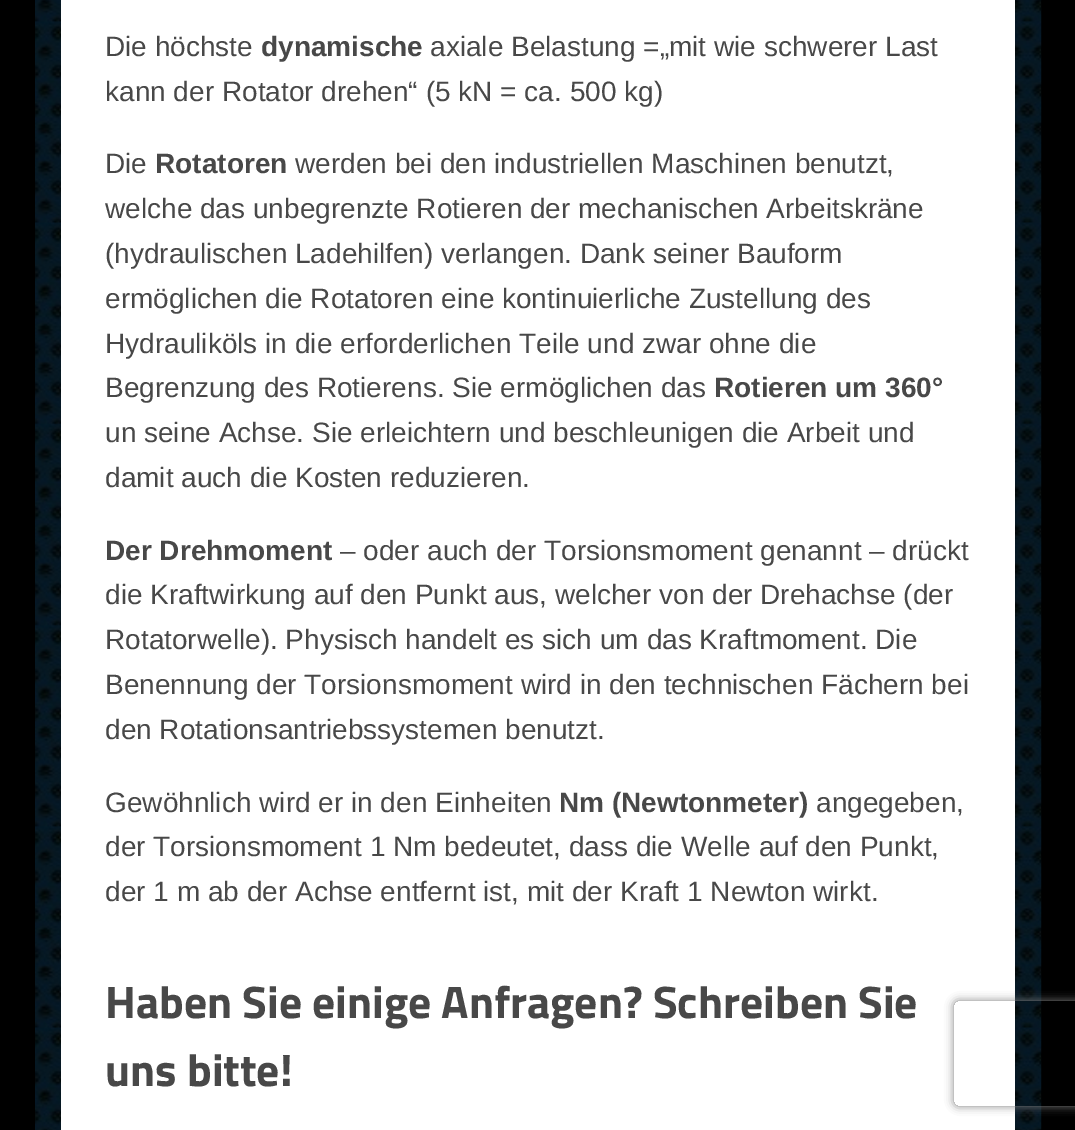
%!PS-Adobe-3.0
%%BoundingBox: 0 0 1075 1130
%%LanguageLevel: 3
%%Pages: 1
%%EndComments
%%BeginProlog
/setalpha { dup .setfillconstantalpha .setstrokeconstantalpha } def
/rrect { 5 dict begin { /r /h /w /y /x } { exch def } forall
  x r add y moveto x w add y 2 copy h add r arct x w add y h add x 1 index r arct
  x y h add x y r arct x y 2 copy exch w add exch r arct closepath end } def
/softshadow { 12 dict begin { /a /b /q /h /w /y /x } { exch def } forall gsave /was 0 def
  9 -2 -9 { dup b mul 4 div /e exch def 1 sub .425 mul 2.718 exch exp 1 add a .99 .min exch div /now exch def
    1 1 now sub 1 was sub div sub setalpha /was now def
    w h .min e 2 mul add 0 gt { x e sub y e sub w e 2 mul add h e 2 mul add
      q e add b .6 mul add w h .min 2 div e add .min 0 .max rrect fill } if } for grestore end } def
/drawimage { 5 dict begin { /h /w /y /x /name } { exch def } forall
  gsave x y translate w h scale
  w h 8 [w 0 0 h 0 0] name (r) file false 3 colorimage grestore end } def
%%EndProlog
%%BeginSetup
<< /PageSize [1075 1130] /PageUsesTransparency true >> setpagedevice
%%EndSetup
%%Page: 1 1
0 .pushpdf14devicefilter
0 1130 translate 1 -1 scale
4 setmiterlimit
0 setgray
0 0 1075 1130 rectfill
(images/1.raw) 35 0 1007 1130 drawimage
1 setgray
61 0 954 1130 rectfill
gsave
newpath 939 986 moveto 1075 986 lineto 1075 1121 lineto 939 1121 lineto closepath 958 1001 moveto 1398 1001 lineto 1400 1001 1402 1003 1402 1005 curveto 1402 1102 lineto 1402 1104 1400 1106 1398 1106 curveto 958 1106 lineto 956 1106 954 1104 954 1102 curveto 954 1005 lineto 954 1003 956 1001 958 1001 curveto closepath eoclip newpath
0.502 setgray
954 1001 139 105 4 4.5 1 softshadow
grestore
/LiberationSans-Regular [28 0 0 -28 0 0] selectfont
0.282 setgray
105 56 moveto (Die höchste) show
/LiberationSans-Bold [28 0 0 -28 0 0] selectfont
261 56 moveto (dynamische) show
/LiberationSans-Regular [28 0 0 -28 0 0] selectfont
430 56 moveto (axiale Belastung =„mit wie schwerer Last) show
105 101 moveto (kann der Rotator drehen“ \(5 kN = ca. 500 kg\)) show
105 173 moveto (Die) show
/LiberationSans-Bold [28 0 0 -28 0 0] selectfont
155 173 moveto (Rotatoren) show
/LiberationSans-Regular [28 0 0 -28 0 0] selectfont
295 173 moveto (werden bei den industriellen Maschinen benutzt,) show
105 218 moveto (welche das unbegrenzte Rotieren der mechanischen Arbeitskräne) show
105 263 moveto (\(hydraulischen Ladehilfen\) verlangen. Dank seiner Bauform) show
105 308 moveto (ermöglichen die Rotatoren eine kontinuierliche Zustellung des) show
105 353 moveto (Hydrauliköls in die erforderlichen Teile und zwar ohne die) show
105 397 moveto (Begrenzung des Rotierens. Sie ermöglichen das) show
/LiberationSans-Bold [28 0 0 -28 0 0] selectfont
714 397 moveto (Rotieren um 360°) show
/LiberationSans-Regular [28 0 0 -28 0 0] selectfont
105 442 moveto (un seine Achse. Sie erleichtern und beschleunigen die Arbeit und) show
105 487 moveto (damit auch die Kosten reduzieren.) show
/LiberationSans-Bold [28 0 0 -28 0 0] selectfont
105 560 moveto (Der Drehmoment) show
/LiberationSans-Regular [28 0 0 -28 0 0] selectfont
340 560 moveto (– oder auch der Torsionsmoment genannt – drückt) show
105 604 moveto (die Kraftwirkung auf den Punkt aus, welcher von der Drehachse \(der) show
105 649 moveto (Rotatorwelle\). Physisch handelt es sich um das Kraftmoment. Die) show
105 694 moveto (Benennung der Torsionsmoment wird in den technischen Fächern bei) show
105 739 moveto (den Rotationsantriebssystemen benutzt.) show
105 812 moveto (Gewöhnlich wird er in den Einheiten) show
/LiberationSans-Bold [28 0 0 -28 0 0] selectfont
559 812 moveto (Nm \(Newtonmeter\)) show
/LiberationSans-Regular [28 0 0 -28 0 0] selectfont
816 812 moveto (angegeben,) show
105 856 moveto (der Torsionsmoment 1 Nm bedeutet, dass die Welle auf den Punkt,) show
105 901 moveto (der 1 m ab der Achse entfernt ist, mit der Kraft 1 Newton wirkt.) show
/TitilliumWeb-Bold [45.5 0 0 -45.5 0 0] selectfont
105 1018 moveto (Haben Sie einige Anfragen? Schreiben Sie) show
105 1086 moveto (uns bitte!) show
.poppdf14devicefilter showpage
%%EOF
